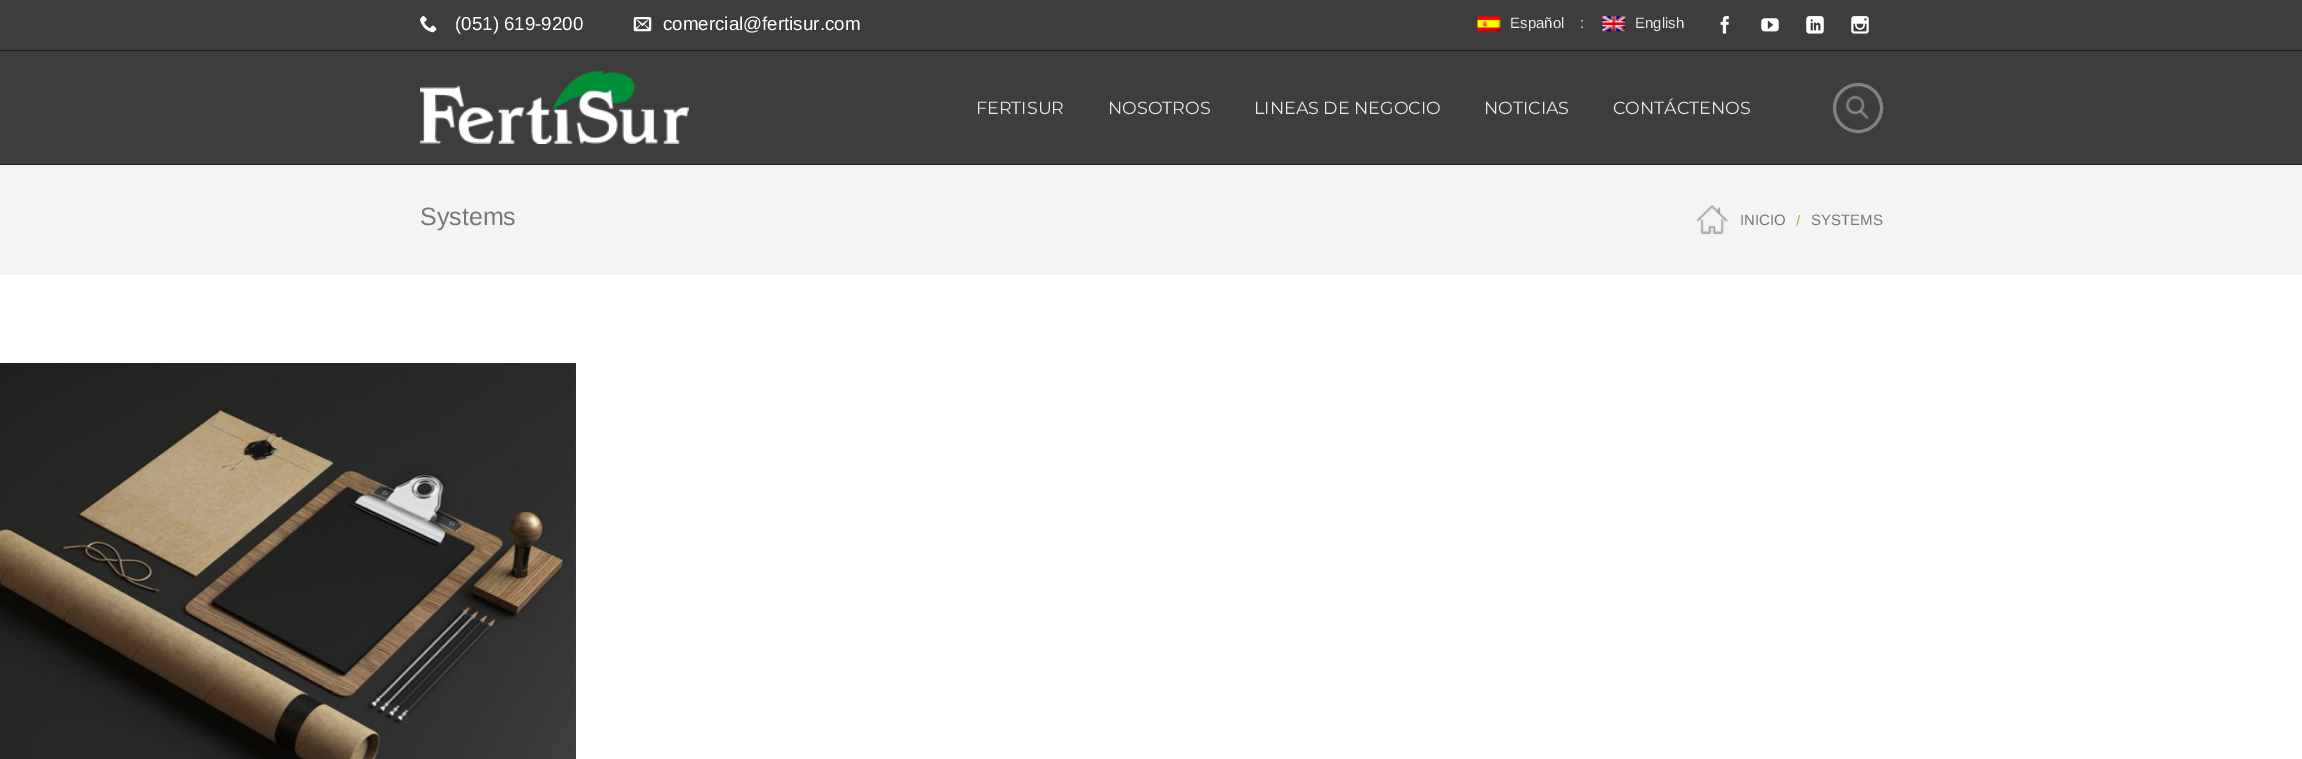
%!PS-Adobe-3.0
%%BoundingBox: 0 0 2302 759
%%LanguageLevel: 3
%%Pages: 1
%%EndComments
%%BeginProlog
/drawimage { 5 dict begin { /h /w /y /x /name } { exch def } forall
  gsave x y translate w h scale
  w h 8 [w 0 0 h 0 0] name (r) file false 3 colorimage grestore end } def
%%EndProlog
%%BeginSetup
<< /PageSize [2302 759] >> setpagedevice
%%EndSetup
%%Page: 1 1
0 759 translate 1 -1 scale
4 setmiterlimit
1 setgray
0 0 2302 759 rectfill
0.239 setgray
0 0 2302 50 rectfill
0.118 setgray
0 50 2302 1 rectfill
(images/1.raw) 420 16 17 17 drawimage
(images/2.raw) 633 17 19 15 drawimage
(images/3.raw) 1477 16 24 16 drawimage
(images/4.raw) 1602 16 24 16 drawimage
(images/5.raw) 1720 16 9 18 drawimage
(images/6.raw) 1761 18 18 14 drawimage
(images/7.raw) 1806 16 18 18 drawimage
(images/8.raw) 1851 16 18 18 drawimage
0.239 setgray
0 51 2302 113 rectfill
0.122 setgray
0 164 2302 1 rectfill
(images/9.raw) 420 71 269 73 drawimage
(images/10.raw) 1845 95 24 25 drawimage
0.51 setgray
3 setlinewidth
newpath 1858 108 23.5 0 360 arc closepath stroke
0.957 setgray
0 165 2302 110 rectfill
(images/11.raw) 1696 205 32 29 drawimage
(images/12.raw) 0 363 576 396 drawimage
/LiberationSans-Regular [18.75 0 0 -18.75 0 0] selectfont
1 setgray
455 30 moveto (\(051\) 619-9200) show
663 30 moveto (comercial@fertisur.com) show
/LiberationSans-Regular [15 0 0 -15 0 0] selectfont
0.918 setgray
1510 28 moveto (Español) show
1580 28 moveto (:) show
1635 28 moveto (English) show
/Montserrat-Thin [17.5 0 0 -17.5 0 0] selectfont
976 114 moveto (FERTISUR) show
1108 114 moveto (NOSOTROS) show
1254 114 moveto (LINEAS DE NEGOCIO) show
1484 114 moveto (NOTICIAS) show
1613 114 moveto (CONTÁCTENOS) show
/LiberationSans-Regular [25 0 0 -25 0 0] selectfont
0.467 setgray
420 225 moveto (Systems) show
/LiberationSans-Regular [15 0 0 -15 0 0] selectfont
1740 225 moveto (INICIO) show
0.549 0.769 0.263 setrgbcolor
1796 226 moveto (/) show
0.467 setgray
1811 225 moveto (SYSTEMS) show
showpage
%%EOF
